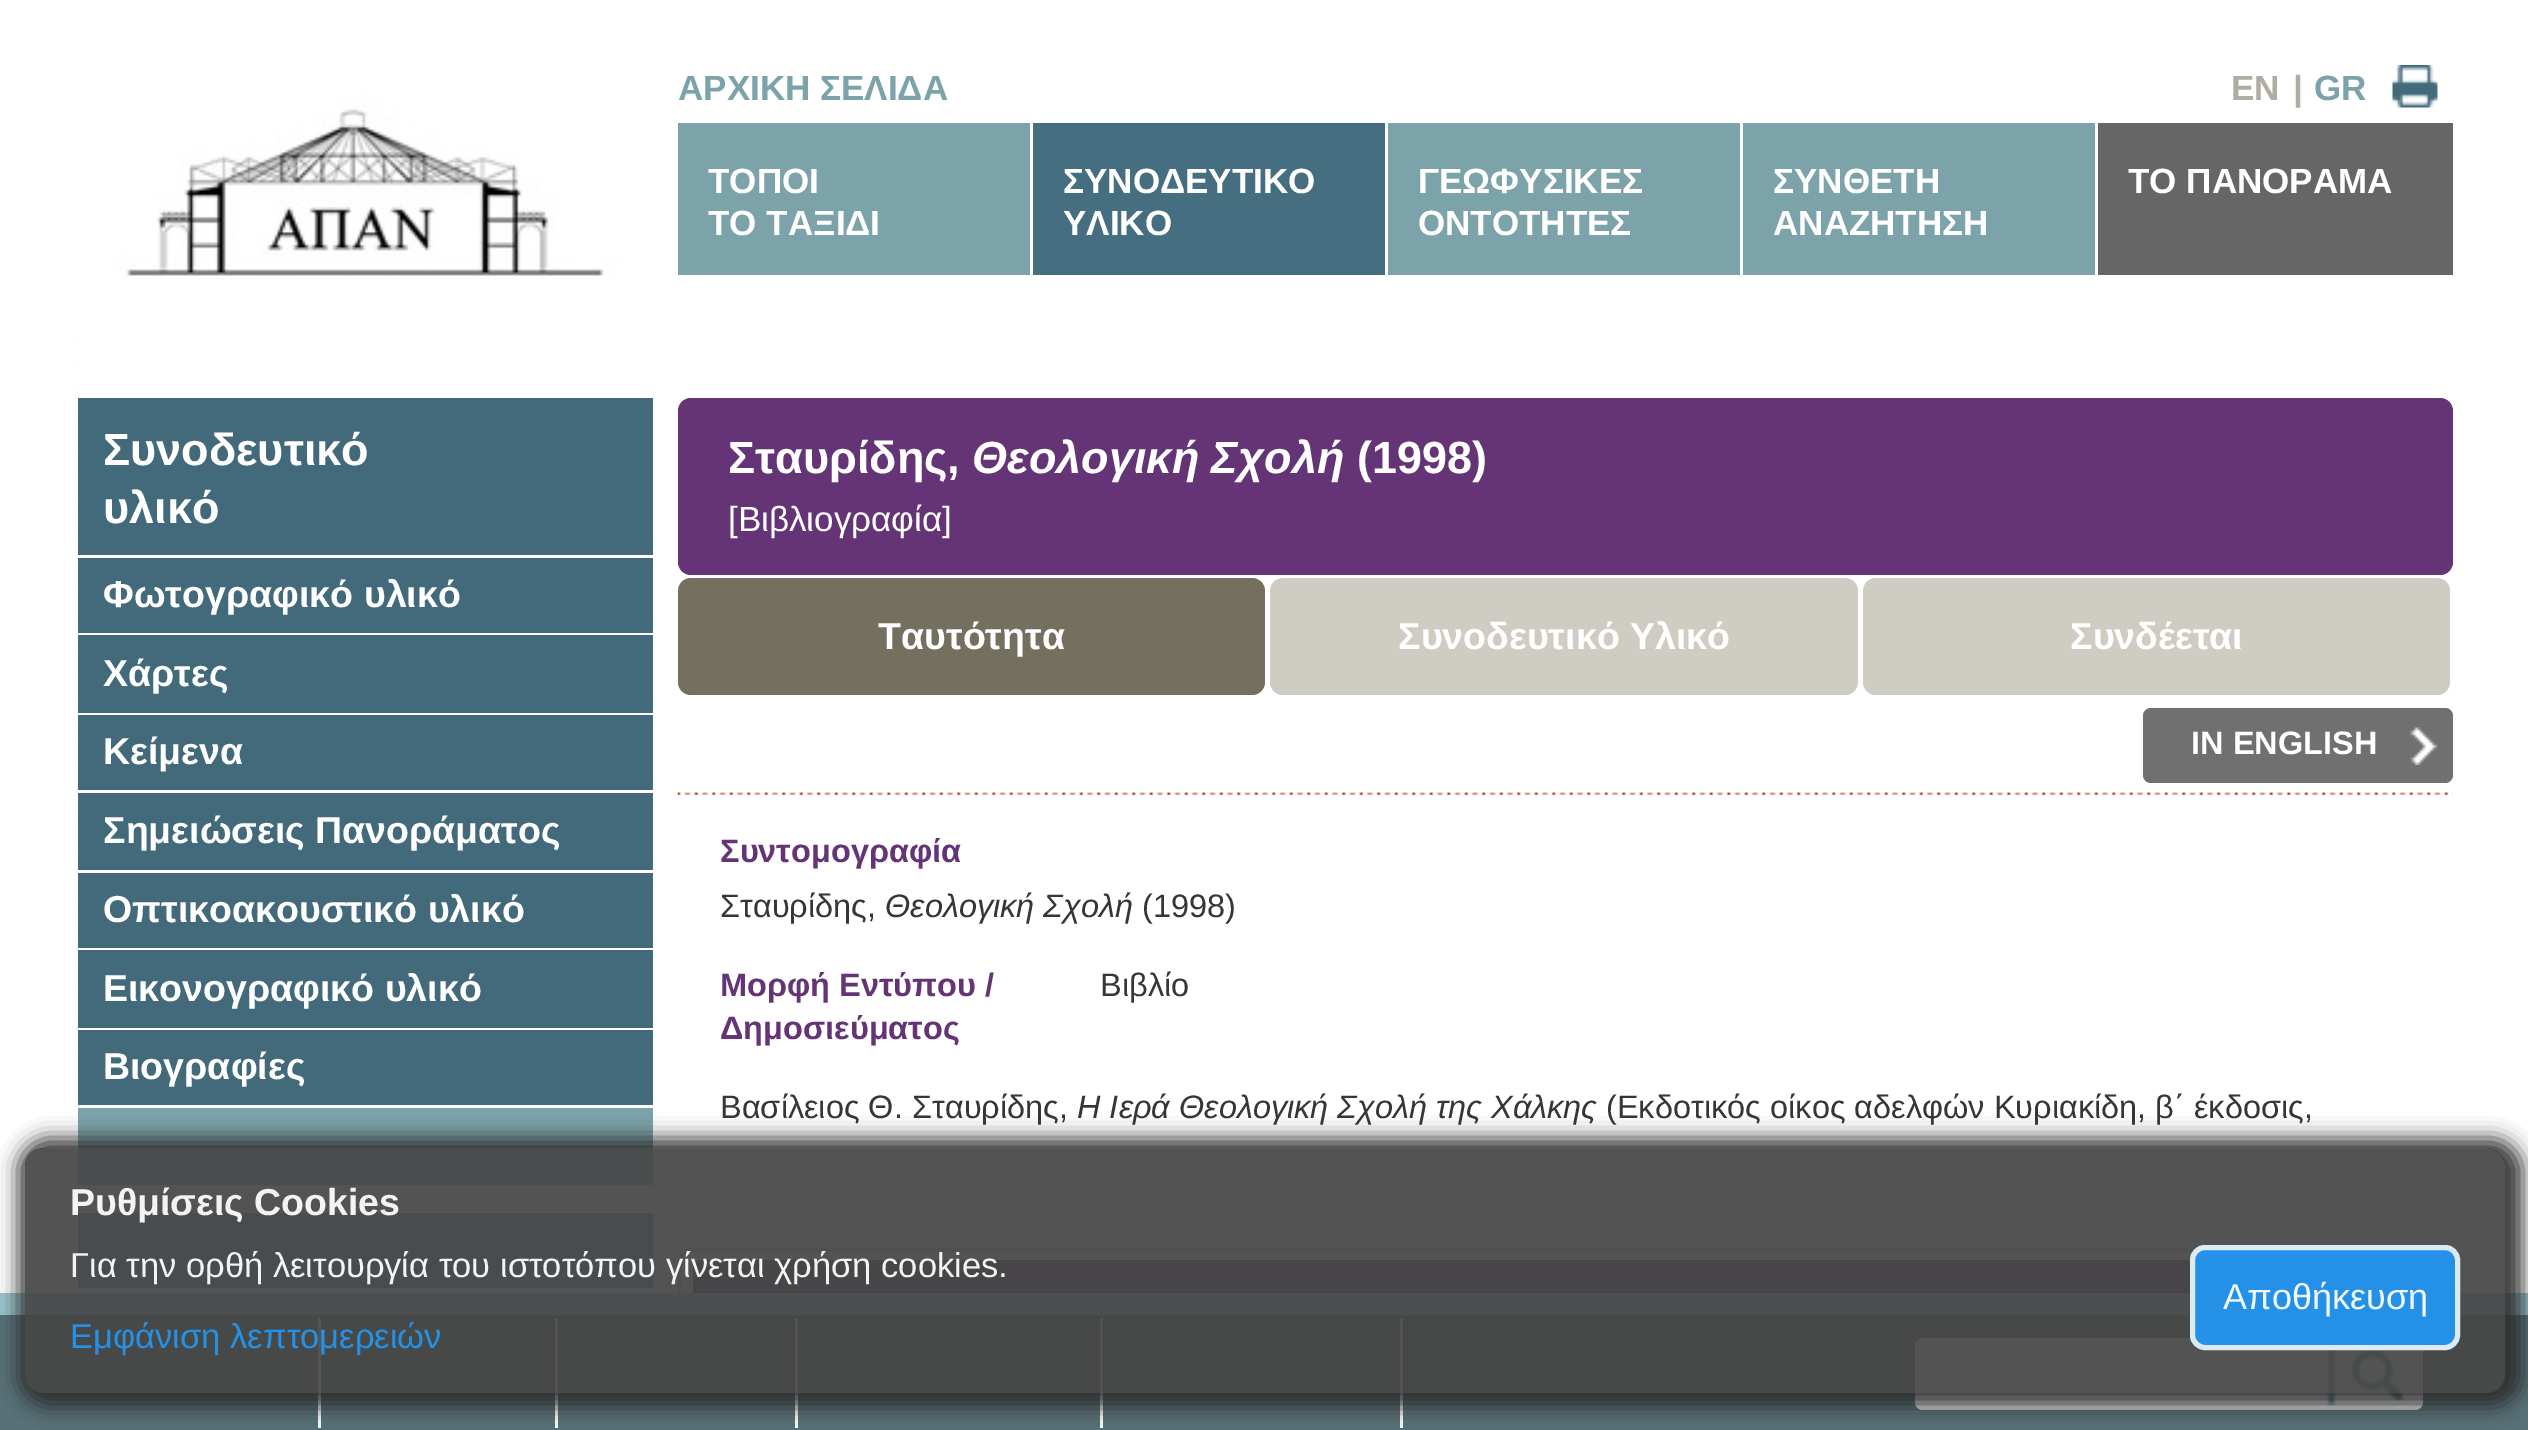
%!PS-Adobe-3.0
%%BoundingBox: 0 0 2528 1430
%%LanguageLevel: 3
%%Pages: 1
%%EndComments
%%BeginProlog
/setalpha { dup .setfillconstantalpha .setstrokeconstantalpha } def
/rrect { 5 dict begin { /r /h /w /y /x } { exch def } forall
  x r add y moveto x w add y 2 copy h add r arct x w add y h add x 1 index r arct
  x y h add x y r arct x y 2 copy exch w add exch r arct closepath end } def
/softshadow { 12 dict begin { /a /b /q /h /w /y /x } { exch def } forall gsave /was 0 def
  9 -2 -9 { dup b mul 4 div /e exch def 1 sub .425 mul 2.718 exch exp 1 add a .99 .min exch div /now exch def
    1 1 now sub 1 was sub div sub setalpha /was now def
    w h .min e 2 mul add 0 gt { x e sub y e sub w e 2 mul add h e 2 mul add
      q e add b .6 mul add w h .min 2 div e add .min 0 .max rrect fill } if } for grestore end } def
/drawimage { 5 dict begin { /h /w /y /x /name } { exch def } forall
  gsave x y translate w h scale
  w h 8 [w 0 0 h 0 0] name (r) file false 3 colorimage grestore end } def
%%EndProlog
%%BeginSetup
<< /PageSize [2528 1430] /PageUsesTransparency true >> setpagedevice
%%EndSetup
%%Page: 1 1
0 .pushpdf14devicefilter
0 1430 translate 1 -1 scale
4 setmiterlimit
1 setgray
0 0 2528 1430 rectfill
(images/1.raw) 77 0 576 1293 drawimage
(images/2.raw) 77 0 576 335 drawimage
(images/3.raw) 2392 65 46 43 drawimage
0.4 setgray
2098 123 355 152 rectfill
0.486 0.639 0.667 setrgbcolor
678 123 352 152 rectfill
0.271 0.435 0.502 setrgbcolor
1033 123 352 152 rectfill
0.486 0.639 0.667 setrgbcolor
1388 123 352 152 rectfill
1743 123 352 152 rectfill
1 setgray
78 335 575 63 rectfill
78 555 575 738 rectfill
0.259 0.416 0.482 setrgbcolor
78 398 575 157 rectfill
78 558 575 75 rectfill
78 635 575 78 rectfill
78 715 575 75 rectfill
78 793 575 77 rectfill
78 873 575 75 rectfill
78 950 575 78 rectfill
78 1030 575 75 rectfill
0.486 0.639 0.667 setrgbcolor
78 1108 575 77 rectfill
0.38 0.604 0.702 setrgbcolor
78 1213 575 75 rectfill
0.392 0.204 0.463 setrgbcolor
678 398 1775 177 13 rrect fill
0.459 0.435 0.373 setrgbcolor
678 578 587 117 13 rrect fill
0.812 0.8 0.765 setrgbcolor
1270 578 588 117 13 rrect fill
1863 578 587 117 13 rrect fill
(images/4.raw) 677 792 1776 3 drawimage
0.439 setgray
2143 708 310 75 8 rrect fill
(images/5.raw) 2410 727 28 38 drawimage
0.796 0.78 0.737 setrgbcolor
3 setlinewidth
679.5 1249.5 1772 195 11.5 rrect stroke
0.392 0.204 0.463 setrgbcolor
693 1260 1745 58 8 rrect fill
0.341 0.443 0.467 setrgbcolor
0 1315 2528 115 rectfill
0.6 0.776 0.808 setrgbcolor
0 1293 2528 22 rectfill
1 setgray
318 1318 3 110 rectfill
555 1318 3 110 rectfill
795 1318 3 110 rectfill
1100 1318 3 110 rectfill
1400 1318 3 110 rectfill
newpath 1923 1338 moveto 2328 1338 lineto 2328 1410 lineto 1923 1410 lineto 1918.5 1410 1915 1406.5 1915 1402 curveto 1915 1346 lineto 1915 1341.5 1918.5 1338 1923 1338 curveto closepath fill
newpath 2328 1338 moveto 2415 1338 lineto 2419.5 1338 2423 1341.5 2423 1346 curveto 2423 1402 lineto 2423 1406.5 2419.5 1410 2415 1410 curveto 2328 1410 lineto closepath fill
(images/6.raw) 2327 1341 77 66 drawimage
gsave
newpath 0 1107 moveto 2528 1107 lineto 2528 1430 lineto 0 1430 lineto closepath 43 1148 moveto 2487 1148 lineto 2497 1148 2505 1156 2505 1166 curveto 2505 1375 lineto 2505 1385 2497 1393 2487 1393 curveto 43 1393 lineto 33 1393 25 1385 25 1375 curveto 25 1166 lineto 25 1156 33 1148 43 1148 curveto closepath eoclip newpath
0.176 setgray
18 1138 2505 270 30 10 0.93 softshadow
grestore
0.93 setalpha
0.275 setgray
25 1148 2480 245 18 rrect fill
0.129 0.588 0.953 setrgbcolor
2190 1245 270 105 15 rrect fill
0.922 0.945 0.949 setrgbcolor
5 setlinewidth
2192.5 1247.5 265 100 12.5 rrect stroke
/LiberationSans-Bold [35 0 0 -35 0 0] selectfont
1 setalpha
0.486 0.639 0.667 setrgbcolor
678 100 moveto (ΑΡΧΙΚΗ ΣΕΛΙΔΑ) show
0.686 0.675 0.635 setrgbcolor
2231 100 moveto (EN) show
2293 100 moveto (|) show
0.486 0.639 0.667 setrgbcolor
2314 100 moveto (GR) show
1 setgray
708 193 moveto (ΤΟΠΟΙ) show
708 235 moveto (ΤΟ ΤΑΞΙΔΙ) show
1063 193 moveto (ΣΥΝΟΔΕΥΤΙΚΟ) show
1063 235 moveto (ΥΛΙΚΟ) show
1418 193 moveto (ΓΕΩΦΥΣΙΚΕΣ) show
1418 235 moveto (ΟΝΤΟΤΗΤΕΣ) show
1773 193 moveto (ΣΥΝΘΕΤΗ) show
1773 235 moveto (ΑΝΑΖΗΤΗΣΗ) show
2128 193 moveto (ΤΟ ΠΑΝΟΡΑΜΑ) show
/LiberationSans-Bold [45 0 0 -45 0 0] selectfont
103 465 moveto (Συνοδευτικό) show
103 523 moveto (υλικό) show
/LiberationSans-Bold [37.5 0 0 -37.5 0 0] selectfont
103 607 moveto (Φωτογραφικό υλικό) show
103 686 moveto (Χάρτες) show
103 764 moveto (Κείμενα) show
103 843 moveto (Σημειώσεις Πανοράματος) show
103 922 moveto (Οπτικοακουστικό υλικό) show
103 1001 moveto (Εικονογραφικό υλικό) show
103 1079 moveto (Βιογραφίες) show
/LiberationSans-Bold [45 0 0 -45 0 0] selectfont
728 473 moveto (Σταυρίδης,) show
/LiberationSans-BoldItalic [45 0 0 -45 0 0] selectfont
972 473 moveto (Θεολογική Σχολή) show
/LiberationSans-Bold [45 0 0 -45 0 0] selectfont
1357 473 moveto (\(1998\)) show
/LiberationSans-Regular [35 0 0 -35 0 0] selectfont
728 531 moveto ([Βιβλιογραφία]) show
/LiberationSans-Bold [37.5 0 0 -37.5 0 0] selectfont
878 649 moveto (Ταυτότητα) show
1398 649 moveto (Συνοδευτικό Υλικό) show
2070 649 moveto (Συνδέεται) show
/LiberationSans-Bold [32.5 0 0 -32.5 0 0] selectfont
2191 754 moveto (IN ENGLISH) show
0.392 0.204 0.463 setrgbcolor
720 862 moveto (Συντομογραφία) show
/LiberationSans-Regular [32.5 0 0 -32.5 0 0] selectfont
0.212 setgray
720 917 moveto (Σταυρίδης,) show
/LiberationSans-Italic [32.5 0 0 -32.5 0 0] selectfont
885 917 moveto (Θεολογική Σχολή) show
/LiberationSans-Regular [32.5 0 0 -32.5 0 0] selectfont
1142 917 moveto (\(1998\)) show
/LiberationSans-Bold [32.5 0 0 -32.5 0 0] selectfont
0.392 0.204 0.463 setrgbcolor
720 996 moveto (Μορφή Εντύπου /) show
720 1039 moveto (Δημοσιεύματος) show
/LiberationSans-Regular [32.5 0 0 -32.5 0 0] selectfont
0.212 setgray
1100 996 moveto (Βιβλίο) show
720 1118 moveto (Βασίλειος Θ. Σταυρίδης,) show
/LiberationSans-Italic [32.5 0 0 -32.5 0 0] selectfont
1077 1118 moveto (Η Ιερά Θεολογική Σχολή της Χάλκης) show
/LiberationSans-Regular [32.5 0 0 -32.5 0 0] selectfont
1606 1118 moveto (\(Εκδοτικός οίκος αδελφών Κυριακίδη, β΄ έκδοσις,) show
/LiberationSans-Bold [37.5 0 0 -37.5 0 0] selectfont
0.953 setgray
70 1215 moveto (Ρυθμίσεις Cookies) show
/LiberationSans-Regular [34.5 0 0 -34.5 0 0] selectfont
70 1277 moveto (Για την ορθή λειτουργία του ιστοτόπου γίνεται χρήση cookies.) show
0.141 0.569 0.906 setrgbcolor
70 1348 moveto (Eμφάνιση λεπτομερειών) show
/LiberationSans-Regular [36 0 0 -36 0 0] selectfont
0.941 0.969 0.992 setrgbcolor
2223 1309 moveto (Αποθήκευση) show
.poppdf14devicefilter showpage
%%EOF
